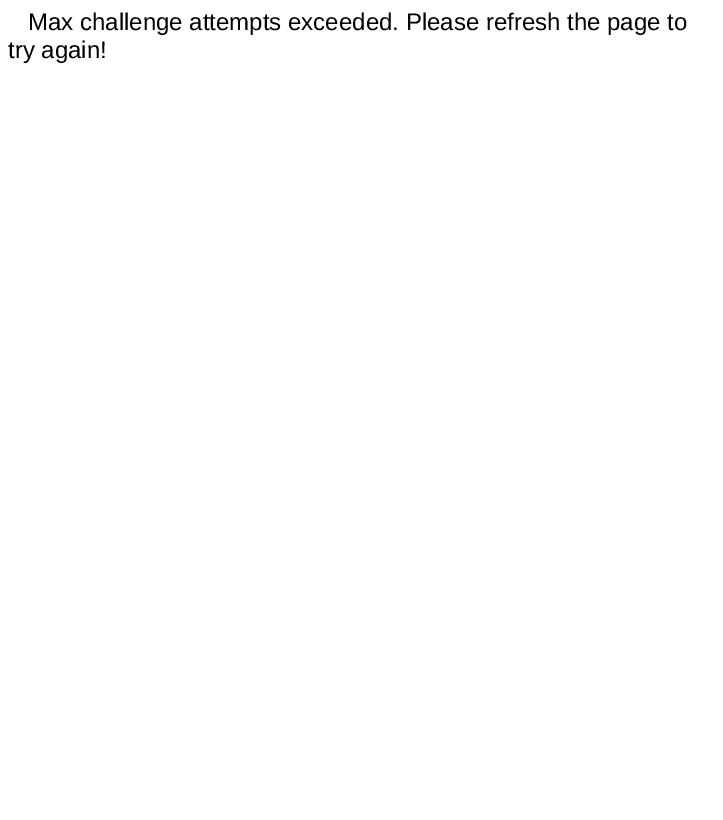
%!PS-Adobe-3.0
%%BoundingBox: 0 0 723 820
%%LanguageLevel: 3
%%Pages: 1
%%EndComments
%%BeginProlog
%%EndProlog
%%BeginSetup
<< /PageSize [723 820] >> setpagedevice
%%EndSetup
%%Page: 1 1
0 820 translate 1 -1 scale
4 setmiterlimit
1 setgray
0 0 723 820 rectfill
/LiberationSans-Regular [24 0 0 -24 0 0] selectfont
0 setgray
28 30 moveto (Max challenge attempts exceeded. Please refresh the page to) show
8 58 moveto (try again!) show
showpage
%%EOF
